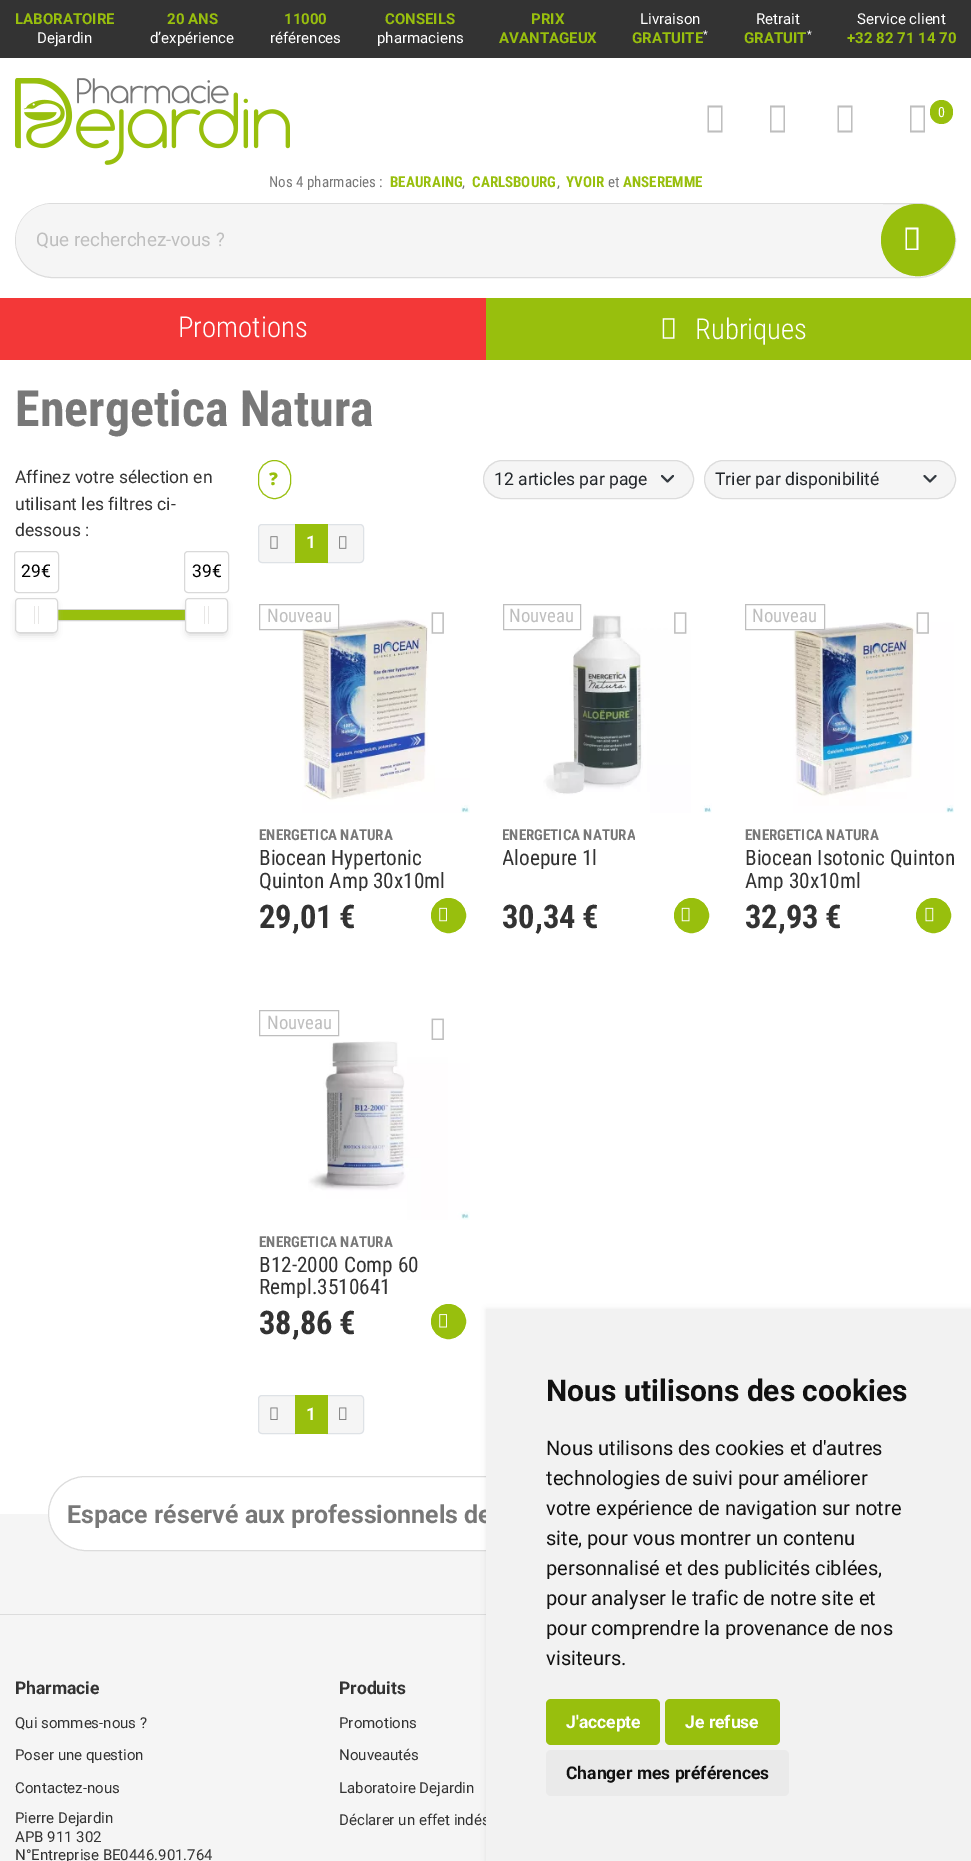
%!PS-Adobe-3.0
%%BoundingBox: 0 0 971 1861
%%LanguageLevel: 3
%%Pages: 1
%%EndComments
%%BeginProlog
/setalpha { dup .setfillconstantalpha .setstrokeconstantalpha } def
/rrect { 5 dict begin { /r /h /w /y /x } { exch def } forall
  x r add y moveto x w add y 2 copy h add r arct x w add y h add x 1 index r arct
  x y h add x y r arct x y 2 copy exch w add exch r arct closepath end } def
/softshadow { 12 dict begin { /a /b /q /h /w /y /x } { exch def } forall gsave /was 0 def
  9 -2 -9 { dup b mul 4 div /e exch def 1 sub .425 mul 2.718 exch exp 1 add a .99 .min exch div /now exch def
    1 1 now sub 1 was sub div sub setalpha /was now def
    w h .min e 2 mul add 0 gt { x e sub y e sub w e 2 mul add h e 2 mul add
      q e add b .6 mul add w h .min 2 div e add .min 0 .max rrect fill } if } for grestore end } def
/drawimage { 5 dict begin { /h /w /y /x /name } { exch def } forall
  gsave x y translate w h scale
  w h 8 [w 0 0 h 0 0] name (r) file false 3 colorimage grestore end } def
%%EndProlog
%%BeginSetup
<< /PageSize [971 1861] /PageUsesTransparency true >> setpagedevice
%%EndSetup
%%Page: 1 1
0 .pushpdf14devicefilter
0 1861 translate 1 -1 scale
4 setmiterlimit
1 setgray
0 0 971 1861 rectfill
0.2 setgray
0 0 971 58 rectfill
(images/1.raw) 15 78 275 87 drawimage
0.745 setgray
newpath 707.5 132.5 moveto 707.5 105.5 lineto 722.5 105.5 lineto 722.5 132.5 lineto closepath 709 130.5 moveto 721 130.5 lineto 721 107.5 lineto 709 107.5 lineto closepath fill
newpath 770 132.5 moveto 770 105.5 lineto 785 105.5 lineto 785 132.5 lineto closepath 771.5 130.5 moveto 783.5 130.5 lineto 783.5 107.5 lineto 771.5 107.5 lineto closepath fill
newpath 837.5 132.5 moveto 837.5 105.5 lineto 852.5 105.5 lineto 852.5 132.5 lineto closepath 839 130.5 moveto 851 130.5 lineto 851 107.5 lineto 839 107.5 lineto closepath fill
newpath 910 132.5 moveto 910 105.5 lineto 925 105.5 lineto 925 132.5 lineto closepath 911.5 130.5 moveto 923.5 130.5 lineto 923.5 107.5 lineto 911.5 107.5 lineto closepath fill
0.596 0.749 0.051 setrgbcolor
930 100 23 24 11.5 rrect fill
0.961 setgray
15.5 203.5 940 74 37 rrect gsave fill grestore
0.863 setgray
stroke
0.961 setgray
newpath 52 204 moveto 883 204 lineto 883 276 lineto 52 276 lineto 32 276 16 260 16 240 curveto 16 220 32 204 52 204 curveto closepath fill
0.596 0.749 0.051 setrgbcolor
881.5 204.5 73 71 35.5 rrect gsave fill grestore
stroke
1 setgray
newpath 905.5 250 moveto 905.5 227.5 lineto 918.5 227.5 lineto 918.5 250 lineto closepath 907 248.5 moveto 916.5 248.5 lineto 916.5 229.5 lineto 907 229.5 lineto closepath fill
0.596 0.749 0.051 setrgbcolor
486 298 485 62 rectfill
0.953 0.22 0.22 setrgbcolor
0 298 486 62 rectfill
(images/2.raw) 662 318 13 21 drawimage
0.827 setgray
35.5 609.5 172 11 rectstroke
0.596 0.749 0.051 setrgbcolor
58 610 127 10 rectfill
0.733 setgray
19 605 35 28 0 4 1 softshadow
1 setgray
15.5 598.5 42 34 3.5 rrect gsave fill grestore
0.851 setgray
stroke
14.5 551.5 44 41 3.5 rrect stroke
0.91 0.906 0.902 setrgbcolor
34 606 1 18 rectfill
38 606 1 18 rectfill
0.733 setgray
189 605 35 28 0 4 1 softshadow
1 setgray
185.5 598.5 42 34 3.5 rrect gsave fill grestore
0.851 setgray
stroke
184.5 551.5 44 41 3.5 rrect stroke
0.91 0.906 0.902 setrgbcolor
204 606 1 18 rectfill
208 606 1 18 rectfill
0.596 0.749 0.051 setrgbcolor
258.5 460.5 32 38 16 rrect stroke
0.961 setgray
483 460 211 39 19.5 rrect fill
0.204 0.227 0.251 setrgbcolor
1.9 setlinewidth
1 setlinecap
1 setlinejoin
newpath 662 476 moveto 667.5 481.5 lineto 673 476 lineto stroke
0.863 setgray
1 setlinewidth
0 setlinecap
0 setlinejoin
483.5 460.5 210 38 19 rrect stroke
0.961 setgray
704 460 252 39 19.5 rrect fill
0.204 0.227 0.251 setrgbcolor
1.9 setlinewidth
1 setlinecap
1 setlinejoin
newpath 924.5 476 moveto 930 481.5 lineto 935.5 476 lineto stroke
0.863 setgray
1 setlinewidth
0 setlinecap
0 setlinejoin
704.5 460.5 251 38 19 rrect stroke
0.961 setgray
newpath 262 524.5 moveto 295.5 524.5 lineto 295.5 562.5 lineto 262 562.5 lineto 260 562.5 258.5 561 258.5 559 curveto 258.5 528 lineto 258.5 526 260 524.5 262 524.5 curveto closepath gsave fill grestore
0.871 0.886 0.902 setrgbcolor
stroke
(images/3.raw) 270 536 8 13 drawimage
0.961 setgray
newpath 326.5 524.5 moveto 360 524.5 lineto 362 524.5 363.5 526 363.5 528 curveto 363.5 559 lineto 363.5 561 362 562.5 360 562.5 curveto 326.5 562.5 lineto closepath gsave fill grestore
0.871 0.886 0.902 setrgbcolor
stroke
0.596 0.749 0.051 setrgbcolor
295 524 33 39 rectfill
(images/4.raw) 339 536 8 13 drawimage
(images/5.raw) 302 619 168 194 drawimage
0.5 setalpha
1 setgray
306 626 32 3 rectfill
1 setalpha
0.745 setgray
259.5 604.5 79 25 rectstroke
(images/6.raw) 431 612 13 22 drawimage
0.596 0.749 0.051 setrgbcolor
newpath 448.5 915.5 17 0 360 arc closepath gsave fill grestore
stroke
(images/7.raw) 439 907 8 15 drawimage
(images/8.raw) 543 614 169 199 drawimage
0.745 setgray
503.5 604.5 77 25 rectstroke
(images/9.raw) 674 612 13 22 drawimage
0.596 0.749 0.051 setrgbcolor
newpath 691.5 915.5 17 0 360 arc closepath gsave fill grestore
stroke
(images/10.raw) 681 907 9 15 drawimage
(images/11.raw) 793 622 161 191 drawimage
0.5 setalpha
1 setgray
819 628 5 1 rectfill
1 setalpha
0.745 setgray
745.5 604.5 79 25 rectstroke
(images/12.raw) 916 612 13 22 drawimage
0.596 0.749 0.051 setrgbcolor
newpath 933.5 915.5 17 0 360 arc closepath gsave fill grestore
stroke
(images/13.raw) 925 907 9 15 drawimage
0.745 setgray
259.5 1010.5 79 25 rectstroke
(images/14.raw) 308 1041 162 179 drawimage
(images/15.raw) 431 1018 13 22 drawimage
0.596 0.749 0.051 setrgbcolor
newpath 448.5 1321.5 17 0 360 arc closepath gsave fill grestore
stroke
(images/16.raw) 439 1314 8 14 drawimage
0.961 setgray
newpath 262 1395.5 moveto 295.5 1395.5 lineto 295.5 1433.5 lineto 262 1433.5 lineto 260 1433.5 258.5 1432 258.5 1430 curveto 258.5 1399 lineto 258.5 1397 260 1395.5 262 1395.5 curveto closepath gsave fill grestore
0.871 0.886 0.902 setrgbcolor
stroke
(images/17.raw) 270 1407 8 13 drawimage
0.961 setgray
newpath 326.5 1395.5 moveto 360 1395.5 lineto 362 1395.5 363.5 1397 363.5 1399 curveto 363.5 1430 lineto 363.5 1432 362 1433.5 360 1433.5 curveto 326.5 1433.5 lineto closepath gsave fill grestore
0.871 0.886 0.902 setrgbcolor
stroke
0.596 0.749 0.051 setrgbcolor
295 1395 33 39 rectfill
(images/18.raw) 339 1407 8 13 drawimage
0.961 setgray
0 1514 486 347 rectfill
1 setgray
48.5 1476.5 875 74 37 rrect gsave fill grestore
0.863 setgray
stroke
0 1614 486 1 rectfill
0 setgray
486 1309 485 552 0 2.5 0.07 softshadow
/Roboto-Bold [15 0 0 -15 0 0] selectfont
0.596 0.749 0.051 setrgbcolor
15 24 moveto (LABORATOIRE) show
/Roboto-Regular [15 0 0 -15 0 0] selectfont
1 setgray
37 43 moveto (Dejardin) show
/Roboto-Bold [15 0 0 -15 0 0] selectfont
0.596 0.749 0.051 setrgbcolor
167 24 moveto (20 ANS) show
/Roboto-Regular [15 0 0 -15 0 0] selectfont
1 setgray
150 43 moveto (d’expérience) show
/Roboto-Bold [15 0 0 -15 0 0] selectfont
0.596 0.749 0.051 setrgbcolor
284 24 moveto (11000) show
/Roboto-Regular [15 0 0 -15 0 0] selectfont
1 setgray
270 43 moveto (références) show
/Roboto-Bold [15 0 0 -15 0 0] selectfont
0.596 0.749 0.051 setrgbcolor
385 24 moveto (CONSEILS) show
/Roboto-Regular [15 0 0 -15 0 0] selectfont
1 setgray
377 43 moveto (pharmaciens) show
/Roboto-Bold [15 0 0 -15 0 0] selectfont
0.596 0.749 0.051 setrgbcolor
531 24 moveto (PRIX) show
499 43 moveto (AVANTAGEUX) show
/Roboto-Regular [15 0 0 -15 0 0] selectfont
1 setgray
640 24 moveto (Livraison) show
/Roboto-Bold [15 0 0 -15 0 0] selectfont
0.596 0.749 0.051 setrgbcolor
632 43 moveto (GRATUITE) show
/Roboto-Regular [11 0 0 -11 0 0] selectfont
1 setgray
703 38 moveto (*) show
/Roboto-Regular [15 0 0 -15 0 0] selectfont
756 24 moveto (Retrait) show
/Roboto-Bold [15 0 0 -15 0 0] selectfont
0.596 0.749 0.051 setrgbcolor
744 43 moveto (GRATUIT) show
/Roboto-Regular [11 0 0 -11 0 0] selectfont
1 setgray
807 38 moveto (*) show
/Roboto-Regular [15 0 0 -15 0 0] selectfont
857 24 moveto (Service client) show
/Roboto-Bold [15 0 0 -15 0 0] selectfont
0.596 0.749 0.051 setrgbcolor
847 43 moveto (+32 82 71 14 70) show
/RobotoCondensed-Regular [14 0 0 -14 0 0] selectfont
1 setgray
938 117 moveto (0) show
/RobotoCondensed-Regular [15 0 0 -15 0 0] selectfont
0.471 setgray
269 187 moveto (Nos 4 pharmacies :) show
/RobotoCondensed-Bold [15 0 0 -15 0 0] selectfont
0.596 0.749 0.051 setrgbcolor
390 187 moveto (BEAURAING) show
/RobotoCondensed-Regular [15 0 0 -15 0 0] selectfont
0.471 setgray
462 187 moveto (,) show
/RobotoCondensed-Bold [15 0 0 -15 0 0] selectfont
0.596 0.749 0.051 setrgbcolor
472 187 moveto (CARLSBOURG) show
/RobotoCondensed-Regular [15 0 0 -15 0 0] selectfont
0.471 setgray
557 187 moveto (,) show
/RobotoCondensed-Bold [15 0 0 -15 0 0] selectfont
0.596 0.749 0.051 setrgbcolor
566 187 moveto (YVOIR) show
/RobotoCondensed-Regular [15 0 0 -15 0 0] selectfont
0.471 setgray
608 187 moveto (et) show
/RobotoCondensed-Bold [15 0 0 -15 0 0] selectfont
0.596 0.749 0.051 setrgbcolor
623 187 moveto (ANSEREMME) show
/Roboto-Regular [18.75 0 0 -18.75 0 0] selectfont
0.745 setgray
36 246 moveto (Que recherchez-vous ?) show
/RobotoCondensed-Light [28.75 0 0 -28.75 0 0] selectfont
1 setgray
178 337 moveto (Promotions) show
695 339 moveto (Rubriques) show
/RobotoCondensed-Bold [50 0 0 -50 0 0] selectfont
0.471 setgray
15 426 moveto (Energetica Natura) show
/Roboto-Regular [17.5 0 0 -17.5 0 0] selectfont
0.2 setgray
15 483 moveto (Affinez votre sélection en) show
15 510 moveto (utilisant les filtres ci-) show
15 536 moveto (dessous :) show
0 setgray
21 577 moveto (29€) show
192 577 moveto (39€) show
/NotoSans-Black [17.5 0 0 -17.5 0 0] selectfont
0.596 0.749 0.051 setrgbcolor
269 485 moveto (?) show
/Roboto-Regular [17.5 0 0 -17.5 0 0] selectfont
0.129 0.145 0.161 setrgbcolor
494 485 moveto (12 articles par page) show
715 485 moveto (Trier par disponibilité) show
/Roboto-Bold [17.5 0 0 -17.5 0 0] selectfont
1 setgray
306 548 moveto (1) show
/RobotoCondensed-Regular [18.75 0 0 -18.75 0 0] selectfont
0.745 setgray
267 622 moveto (Nouveau) show
/RobotoCondensed-Bold [15 0 0 -15 0 0] selectfont
0.471 setgray
259 840 moveto (ENERGETICA NATURA) show
/RobotoCondensed-Regular [21.25 0 0 -21.25 0 0] selectfont
0.2 setgray
259 865 moveto (Biocean Hypertonic) show
gsave
259 846 211 45 rectclip
259 888 moveto (Quinton Amp 30x10ml) show
grestore
/RobotoCondensed-Bold [32.5 0 0 -32.5 0 0] selectfont
259 928 moveto (29,01) show
339 928 moveto (€) show
/RobotoCondensed-Regular [18.75 0 0 -18.75 0 0] selectfont
0.745 setgray
509 622 moveto (Nouveau) show
gsave
503 824 132 22 rectclip
/RobotoCondensed-Bold [15 0 0 -15 0 0] selectfont
0.471 setgray
502 840 moveto (ENERGETICA NATURA) show
grestore
gsave
503 846 132 23 rectclip
/RobotoCondensed-Regular [21.25 0 0 -21.25 0 0] selectfont
0.2 setgray
502 865 moveto (Aloepure 1l) show
grestore
/RobotoCondensed-Bold [32.5 0 0 -32.5 0 0] selectfont
0.2 setgray
502 928 moveto (30,34) show
582 928 moveto (€) show
/RobotoCondensed-Regular [18.75 0 0 -18.75 0 0] selectfont
0.745 setgray
752 622 moveto (Nouveau) show
/RobotoCondensed-Bold [15 0 0 -15 0 0] selectfont
0.471 setgray
745 840 moveto (ENERGETICA NATURA) show
/RobotoCondensed-Regular [21.25 0 0 -21.25 0 0] selectfont
0.2 setgray
745 865 moveto (Biocean Isotonic Quinton) show
gsave
745 846 210 45 rectclip
745 888 moveto (Amp 30x10ml) show
grestore
/RobotoCondensed-Bold [32.5 0 0 -32.5 0 0] selectfont
745 928 moveto (32,93) show
825 928 moveto (€) show
/RobotoCondensed-Regular [18.75 0 0 -18.75 0 0] selectfont
0.745 setgray
267 1029 moveto (Nouveau) show
/RobotoCondensed-Bold [15 0 0 -15 0 0] selectfont
0.471 setgray
259 1247 moveto (ENERGETICA NATURA) show
/RobotoCondensed-Regular [21.25 0 0 -21.25 0 0] selectfont
0.2 setgray
259 1272 moveto (B12-2000 Comp 60) show
gsave
259 1253 211 45 rectclip
259 1294 moveto (Rempl.3510641) show
grestore
/RobotoCondensed-Bold [32.5 0 0 -32.5 0 0] selectfont
259 1334 moveto (38,86) show
339 1334 moveto (€) show
/Roboto-Bold [17.5 0 0 -17.5 0 0] selectfont
1 setgray
306 1420 moveto (1) show
/Roboto-Bold [25 0 0 -25 0 0] selectfont
0.471 setgray
67 1523 moveto (Espace réservé aux professionnels de) show
/Roboto-Bold [17.5 0 0 -17.5 0 0] selectfont
0.2 setgray
15 1694 moveto (Pharmacie) show
/Roboto-Regular [15 0 0 -15 0 0] selectfont
15 1728 moveto (Qui sommes-nous ?) show
15 1760 moveto (Poser une question) show
15 1793 moveto (Contactez-nous) show
15 1823 moveto (Pierre Dejardin) show
15 1842 moveto (APB 911 302) show
15 1860 moveto (N°Entreprise BE0446.901.764) show
/Roboto-Bold [17.5 0 0 -17.5 0 0] selectfont
339 1694 moveto (Produits) show
/Roboto-Regular [15 0 0 -15 0 0] selectfont
339 1728 moveto (Promotions) show
339 1760 moveto (Nouveautés) show
339 1793 moveto (Laboratoire Dejardin) show
339 1825 moveto (Déclarer un effet indés) show
0.949 setgray
486 1309 485 552 rectfill
/Roboto-Bold [30 0 0 -30 0 0] selectfont
0.067 setgray
546 1401 moveto (Nous utilisons des cookies) show
/Roboto-Regular [20 0 0 -20 0 0] selectfont
546 1455 moveto (Nous utilisons des cookies et d'autres) show
546 1485 moveto (technologies de suivi pour améliorer) show
546 1515 moveto (votre expérience de navigation sur notre) show
546 1545 moveto (site, pour vous montrer un contenu) show
546 1575 moveto (personnalisé et des publicités ciblées,) show
546 1605 moveto (pour analyser le trafic de notre site et) show
546 1635 moveto (pour comprendre la provenance de nos) show
546 1665 moveto (visiteurs.) show
0.596 0.749 0.051 setrgbcolor
546 1699 114 46 5 rrect fill
/Roboto-Bold [17.5 0 0 -17.5 0 0] selectfont
1 setgray
566 1728 moveto (J'accepte) show
0.596 0.749 0.051 setrgbcolor
665 1699 115 46 5 rrect fill
1 setgray
685 1728 moveto (Je refuse) show
0.918 setgray
546 1750 243 46 5 rrect fill
0.067 setgray
566 1779 moveto (Changer mes préférences) show
.poppdf14devicefilter showpage
%%EOF
